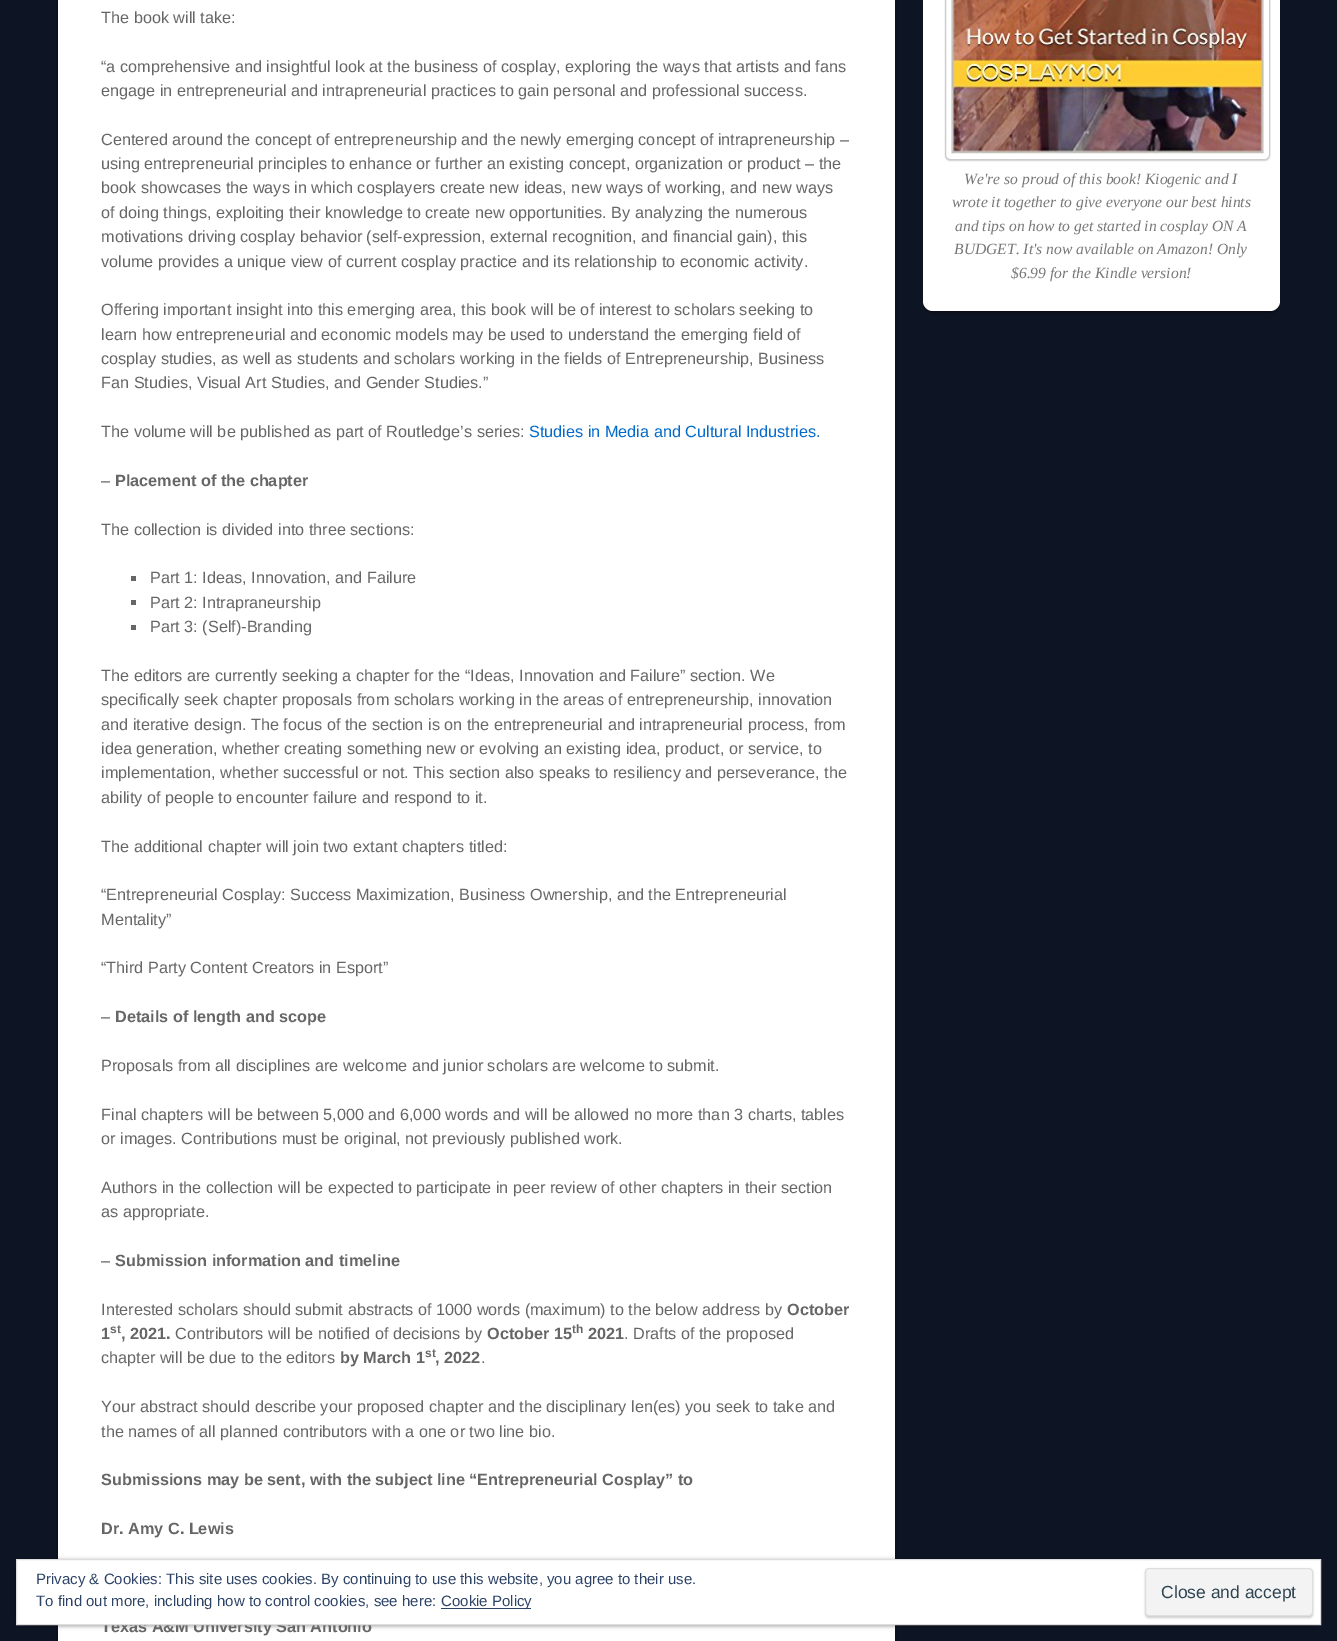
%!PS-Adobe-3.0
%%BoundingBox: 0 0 1337 1641
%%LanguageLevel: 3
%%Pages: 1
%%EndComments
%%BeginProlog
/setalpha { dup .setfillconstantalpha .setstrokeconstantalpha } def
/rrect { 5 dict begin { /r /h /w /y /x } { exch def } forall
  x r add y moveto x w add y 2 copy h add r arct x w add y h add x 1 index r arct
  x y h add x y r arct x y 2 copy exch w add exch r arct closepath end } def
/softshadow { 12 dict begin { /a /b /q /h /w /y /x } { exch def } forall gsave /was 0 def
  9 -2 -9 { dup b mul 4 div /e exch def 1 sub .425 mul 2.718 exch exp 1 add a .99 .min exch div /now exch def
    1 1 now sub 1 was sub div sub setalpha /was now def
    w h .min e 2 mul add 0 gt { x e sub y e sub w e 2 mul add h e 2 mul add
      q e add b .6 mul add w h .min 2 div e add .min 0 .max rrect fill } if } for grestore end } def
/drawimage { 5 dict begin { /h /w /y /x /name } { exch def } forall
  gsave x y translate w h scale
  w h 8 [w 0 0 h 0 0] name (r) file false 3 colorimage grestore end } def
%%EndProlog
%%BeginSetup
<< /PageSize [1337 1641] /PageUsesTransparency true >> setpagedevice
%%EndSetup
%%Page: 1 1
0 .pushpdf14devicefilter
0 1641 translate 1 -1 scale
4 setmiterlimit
0.051 0.078 0.141 setrgbcolor
0 0 1337 1641 rectfill
0 setgray
58 -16 837 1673 10 2 0.4 softshadow
1 setgray
58 0 837 1641 rectfill
0.4 setgray
131 576 5 5 rectfill
131 600 5 5 rectfill
131 625 5 5 rectfill
gsave
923 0 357 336 rectclip
0 setgray
923 -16 357 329 10 2 0.4 softshadow
grestore
1 setgray
923 -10 357 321 10 rrect fill
0 setgray
945 -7 325 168 5 0.5 0.15 softshadow
1 setgray
945.5 -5.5 324 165 4.5 rrect gsave fill grestore
0.8 setgray
stroke
(images/1.raw) 951 0 313 154 drawimage
0 setgray
16 1560 1305 66 10 2 0.4 softshadow
/LiberationSans-Regular [16.25 0 0 -16.25 0 0] selectfont
0.4 setgray
101 23 moveto (The book will take:) show
101 72 moveto (“a comprehensive and insightful look at the business of cosplay, exploring the ways that artists and fans) show
101 96 moveto (engage in entrepreneurial and intrapreneurial practices to gain personal and professional success.) show
101 145 moveto (Centered around the concept of entrepreneurship and the newly emerging concept of intrapreneurship –) show
101 169 moveto (using entrepreneurial principles to enhance or further an existing concept, organization or product – the) show
101 193 moveto (book showcases the ways in which cosplayers create new ideas, new ways of working, and new ways) show
101 218 moveto (of doing things, exploiting their knowledge to create new opportunities. By analyzing the numerous) show
101 242 moveto (motivations driving cosplay behavior \(self-expression, external recognition, and financial gain\), this) show
101 267 moveto (volume provides a unique view of current cosplay practice and its relationship to economic activity.) show
101 315 moveto (Offering important insight into this emerging area, this book will be of interest to scholars seeking to) show
101 340 moveto (learn how entrepreneurial and economic models may be used to understand the emerging field of) show
101 364 moveto (cosplay studies, as well as students and scholars working in the fields of Entrepreneurship, Business) show
101 388 moveto (Fan Studies, Visual Art Studies, and Gender Studies.”) show
101 437 moveto (The volume will be published as part of Routledge’s series:) show
0.008 0.416 0.796 setrgbcolor
529 437 moveto (Studies in Media and Cultural Industries.) show
0.4 setgray
101 486 moveto (–) show
/LiberationSans-Bold [16.25 0 0 -16.25 0 0] selectfont
115 486 moveto (Placement of the chapter) show
/LiberationSans-Regular [16.25 0 0 -16.25 0 0] selectfont
101 535 moveto (The collection is divided into three sections:) show
150 583 moveto (Part 1: Ideas, Innovation, and Failure) show
150 608 moveto (Part 2: Intrapraneurship) show
150 632 moveto (Part 3: \(Self\)-Branding) show
101 681 moveto (The editors are currently seeking a chapter for the “Ideas, Innovation and Failure” section. We) show
101 705 moveto (specifically seek chapter proposals from scholars working in the areas of entrepreneurship, innovation) show
101 730 moveto (and iterative design. The focus of the section is on the entrepreneurial and intrapreneurial process, from) show
101 754 moveto (idea generation, whether creating something new or evolving an existing idea, product, or service, to) show
101 778 moveto (implementation, whether successful or not. This section also speaks to resiliency and perseverance, the) show
101 803 moveto (ability of people to encounter failure and respond to it.) show
101 852 moveto (The additional chapter will join two extant chapters titled:) show
101 900 moveto (“Entrepreneurial Cosplay: Success Maximization, Business Ownership, and the Entrepreneurial) show
101 925 moveto (Mentality”) show
101 973 moveto (“Third Party Content Creators in Esport”) show
101 1022 moveto (–) show
/LiberationSans-Bold [16.25 0 0 -16.25 0 0] selectfont
115 1022 moveto (Details of length and scope) show
/LiberationSans-Regular [16.25 0 0 -16.25 0 0] selectfont
101 1071 moveto (Proposals from all disciplines are welcome and junior scholars are welcome to submit.) show
101 1120 moveto (Final chapters will be between 5,000 and 6,000 words and will be allowed no more than 3 charts, tables) show
101 1144 moveto (or images. Contributions must be original, not previously published work.) show
101 1193 moveto (Authors in the collection will be expected to participate in peer review of other chapters in their section) show
101 1217 moveto (as appropriate.) show
101 1266 moveto (–) show
/LiberationSans-Bold [16.25 0 0 -16.25 0 0] selectfont
115 1266 moveto (Submission information and timeline) show
/LiberationSans-Regular [16.25 0 0 -16.25 0 0] selectfont
101 1315 moveto (Interested scholars should submit abstracts of 1000 words \(maximum\) to the below address by) show
/LiberationSans-Bold [16.25 0 0 -16.25 0 0] selectfont
787 1315 moveto (October) show
101 1339 moveto (1) show
/LiberationSans-Bold [12 0 0 -12 0 0] selectfont
110 1333 moveto (st) show
/LiberationSans-Bold [16.25 0 0 -16.25 0 0] selectfont
121 1339 moveto (, 2021.) show
/LiberationSans-Regular [16.25 0 0 -16.25 0 0] selectfont
175 1339 moveto (Contributors will be notified of decisions by) show
/LiberationSans-Bold [16.25 0 0 -16.25 0 0] selectfont
487 1339 moveto (October 15) show
/LiberationSans-Bold [12 0 0 -12 0 0] selectfont
572 1333 moveto (th) show
/LiberationSans-Bold [16.25 0 0 -16.25 0 0] selectfont
588 1339 moveto (2021) show
/LiberationSans-Regular [16.25 0 0 -16.25 0 0] selectfont
624 1339 moveto (. Drafts of the proposed) show
101 1363 moveto (chapter will be due to the editors) show
/LiberationSans-Bold [16.25 0 0 -16.25 0 0] selectfont
340 1363 moveto (by March 1) show
/LiberationSans-Bold [12 0 0 -12 0 0] selectfont
425 1357 moveto (st) show
/LiberationSans-Bold [16.25 0 0 -16.25 0 0] selectfont
435 1363 moveto (, 2022) show
/LiberationSans-Regular [16.25 0 0 -16.25 0 0] selectfont
481 1363 moveto (.) show
101 1412 moveto (Your abstract should describe your proposed chapter and the disciplinary len\(es\) you seek to take and) show
101 1437 moveto (the names of all planned contributors with a one or two line bio.) show
/LiberationSans-Bold [16.25 0 0 -16.25 0 0] selectfont
101 1485 moveto (Submissions may be sent, with the subject line “Entrepreneurial Cosplay” to) show
101 1534 moveto (Dr. Amy C. Lewis) show
101 1632 moveto (Texas A&M University San Antonio) show
/LiberationSerif-Italic [15.6 0 0 -15.6 0 0] selectfont
0.467 setgray
964 184 moveto (We're so proud of this book! Kiogenic and I) show
952 207 moveto (wrote it together to give everyone our best hints) show
955 231 moveto (and tips on how to get started in cosplay ON A) show
954 254 moveto (BUDGET. It's now available on Amazon! Only) show
1011 278 moveto ($6.99 for the Kindle version!) show
1 setgray
newpath 16.5 1559.5 moveto 1320.5 1559.5 lineto 1320.5 1624.5 lineto 16.5 1624.5 lineto closepath gsave fill grestore
0.871 setgray
stroke
/LiberationSans-Regular [15 0 0 -15 0 0] selectfont
0.18 0.267 0.404 setrgbcolor
36 1584 moveto (Privacy & Cookies: This site uses cookies. By continuing to use this website, you agree to their use.) show
36 1606 moveto (To find out more, including how to control cookies, see here:) show
441 1608 90 1 rectfill
441 1606 moveto (Cookie Policy) show
0 setgray
1145 1569 168 49 4 1 0.2 softshadow
0.953 setgray
1145.5 1568.5 167 47 3.5 rrect gsave fill grestore
0.871 setgray
stroke
/LiberationSans-Regular [17.5 0 0 -17.5 0 0] selectfont
0.18 0.267 0.325 setrgbcolor
1161 1598 moveto (Close and accept) show
.poppdf14devicefilter showpage
%%EOF
